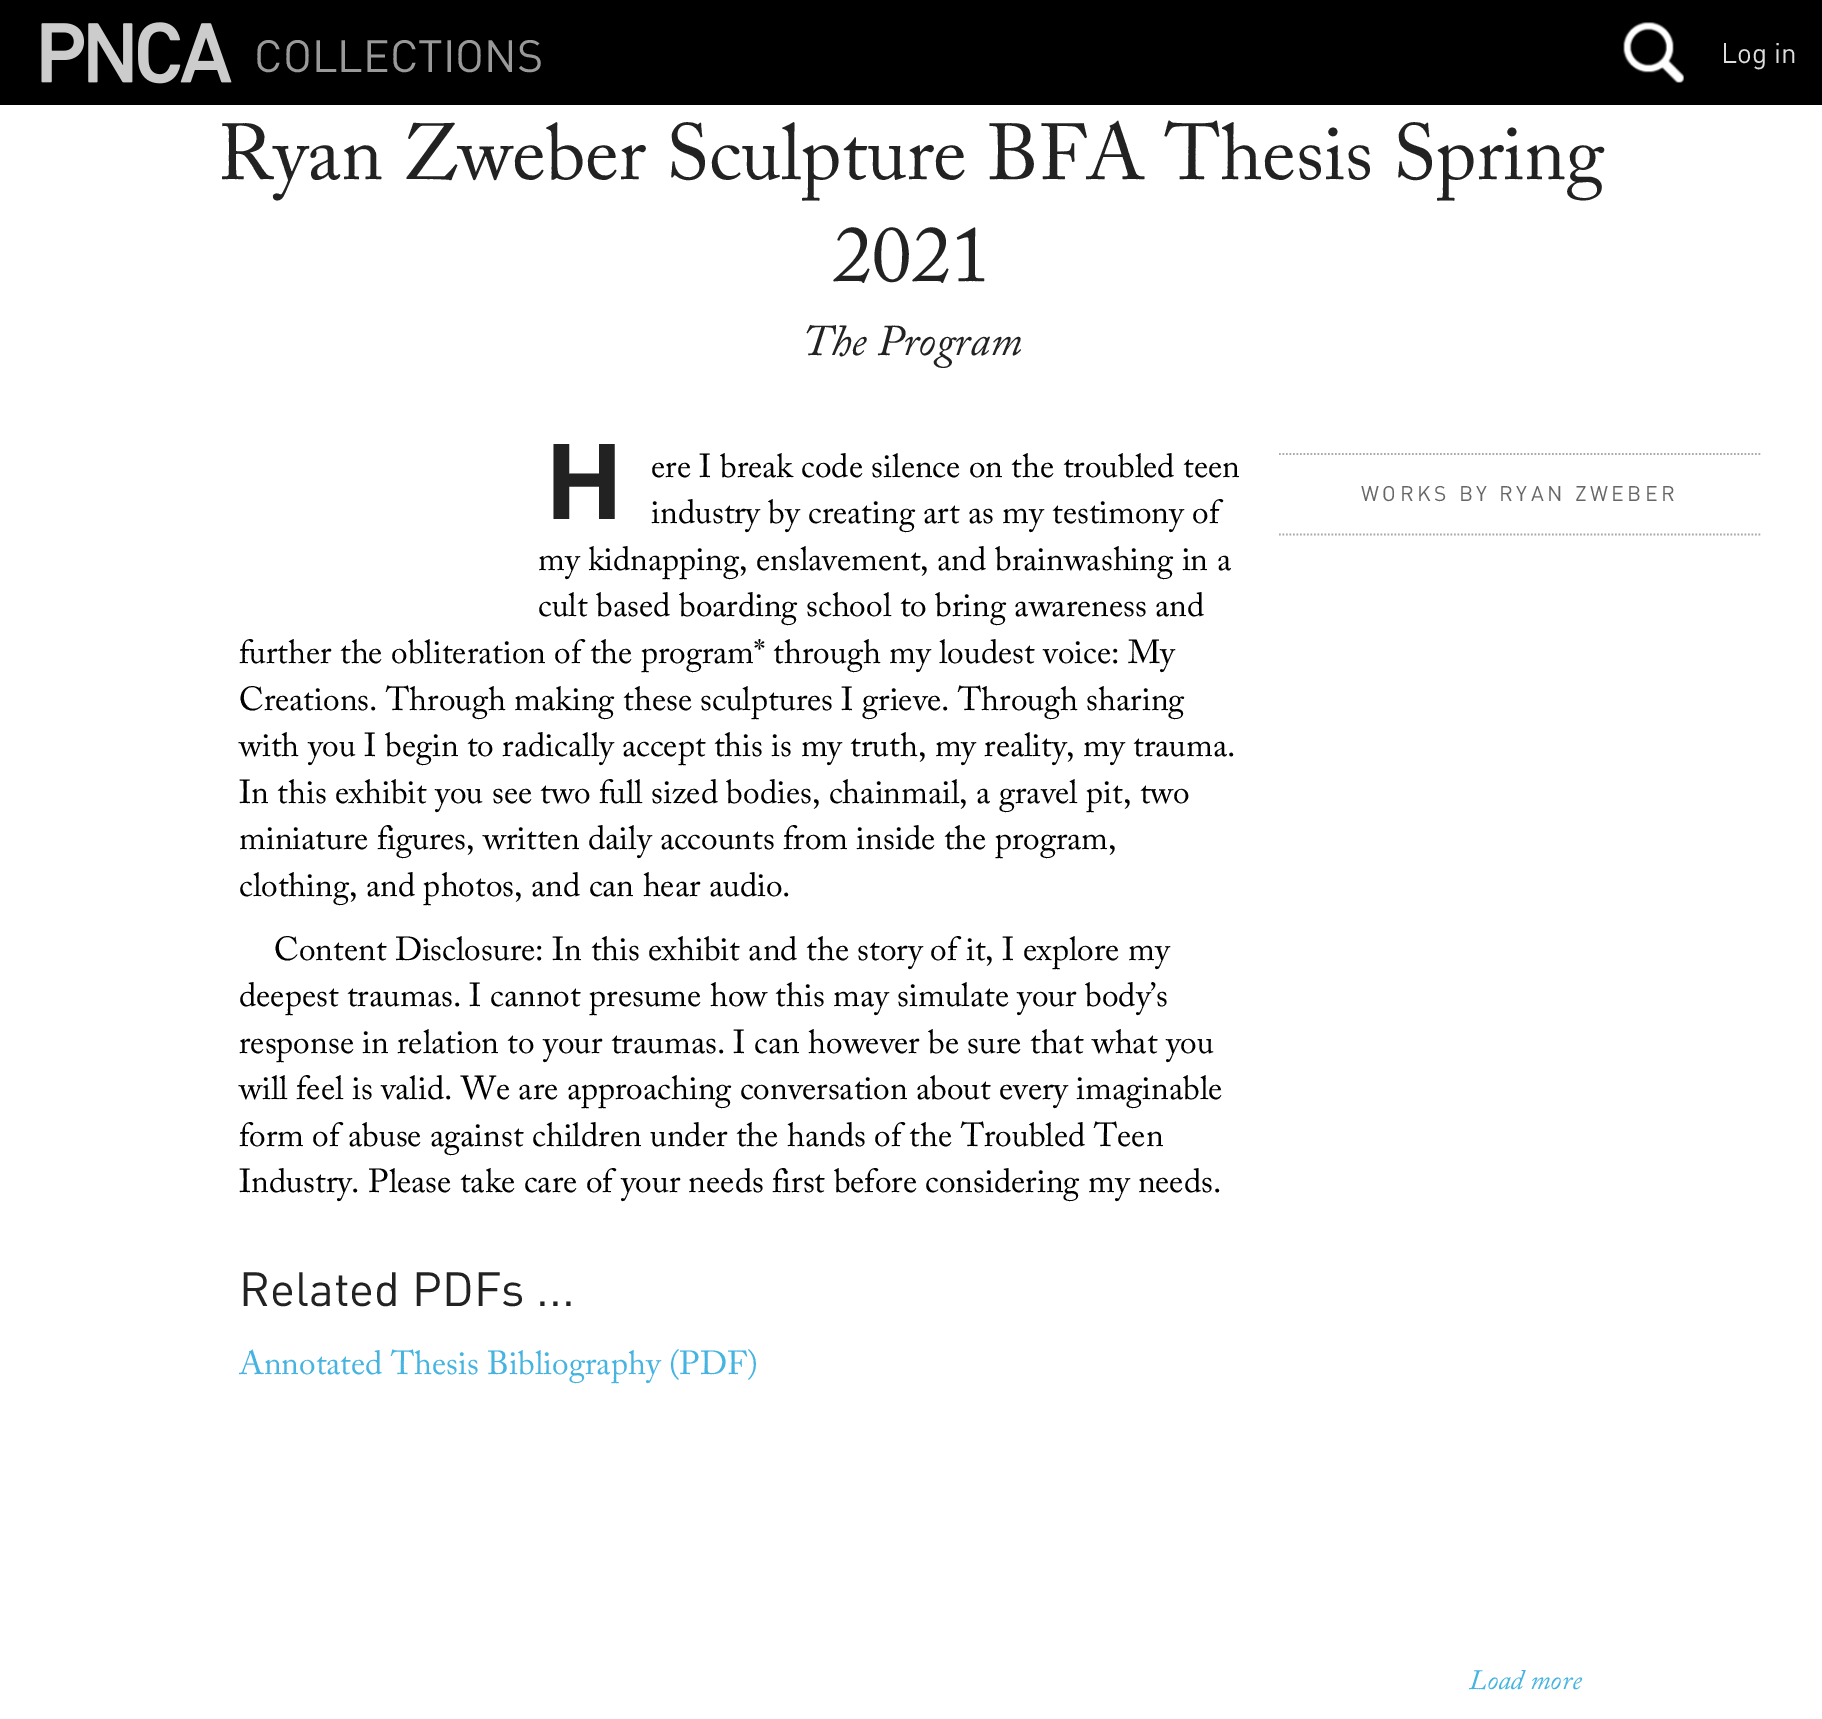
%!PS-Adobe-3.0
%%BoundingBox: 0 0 1822 1719
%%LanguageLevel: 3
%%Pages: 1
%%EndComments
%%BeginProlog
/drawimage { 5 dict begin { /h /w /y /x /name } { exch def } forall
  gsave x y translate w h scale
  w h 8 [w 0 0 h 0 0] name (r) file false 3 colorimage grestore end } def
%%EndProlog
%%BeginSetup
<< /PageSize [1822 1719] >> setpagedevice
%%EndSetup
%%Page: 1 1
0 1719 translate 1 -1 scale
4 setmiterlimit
1 setgray
0 0 1822 1719 rectfill
0 setgray
0 0 1822 105 rectfill
(images/1.raw) 41 22 191 62 drawimage
(images/2.raw) 1623 22 61 61 drawimage
0.667 setgray
1.8 setlinewidth
[1.75 1.75] 0 setdash
newpath 1279 454 moveto 1760.5 454 lineto stroke
newpath 1279 534.5 moveto 1760.5 534.5 lineto stroke
/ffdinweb-Regular [44.75 0 0 -44.75 0 0] selectfont
0.6 setgray
254 72 moveto (COLLECTIONS) show
/ffdinweb-Regular [28 0 0 -28 0 0] selectfont
0.867 setgray
1721 63 moveto (Log in) show
/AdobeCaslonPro-Regular [78.75 0 0 -78.75 0 0] selectfont
0.133 setgray
218 179 moveto (Ryan Zweber Sculpture BFA Thesis Spring) show
833 281 moveto (2021) show
/AdobeCaslonPro-Italic [43.75 0 0 -43.75 0 0] selectfont
802 355 moveto (The Program) show
/NotoSans-Bold [105 0 0 -105 0 0] selectfont
544 519 moveto (H) show
/AdobeCaslonPro-Regular [33.25 0 0 -33.25 0 0] selectfont
0 setgray
651 477 moveto (ere I break code silence on the troubled teen) show
651 523 moveto (industry by creating art as my testimony of) show
538 570 moveto (my kidnapping, enslavement, and brainwashing in a) show
538 616 moveto (cult based boarding school to bring awareness and) show
239 663 moveto (further the obliteration of the program* through my loudest voice: My) show
239 710 moveto (Creations. Through making these sculptures I grieve. Through sharing) show
239 756 moveto (with you I begin to radically accept this is my truth, my reality, my trauma.) show
239 803 moveto (In this exhibit you see two full sized bodies, chainmail, a gravel pit, two) show
239 849 moveto (miniature figures, written daily accounts from inside the program,) show
239 896 moveto (clothing, and photos, and can hear audio.) show
274 960 moveto (Content Disclosure: In this exhibit and the story of it, I explore my) show
239 1006 moveto (deepest traumas. I cannot presume how this may simulate your body’s) show
239 1053 moveto (response in relation to your traumas. I can however be sure that what you) show
239 1099 moveto (will feel is valid. We are approaching conversation about every imaginable) show
239 1146 moveto (form of abuse against children under the hands of the Troubled Teen) show
239 1192 moveto (Industry. Please take care of your needs first before considering my needs.) show
/ffdinweb-Regular [47.25 0 0 -47.25 0 0] selectfont
0.133 setgray
239 1306 moveto (Related PDFs ...) show
/AdobeCaslonPro-Regular [33.25 0 0 -33.25 0 0] selectfont
0.275 0.706 0.882 setrgbcolor
239 1374 moveto (Annotated Thesis Bibliography \(PDF\)) show
/ffdinweb-Regular [21 0 0 -21 0 0] selectfont
0.4 setgray
1361 501 moveto 3.5 0 (WORKS BY RYAN ZWEBER) ashow
/AdobeCaslonPro-Italic [28 0 0 -28 0 0] selectfont
0.275 0.706 0.882 setrgbcolor
1469 1689 moveto (Load more) show
showpage
%%EOF
